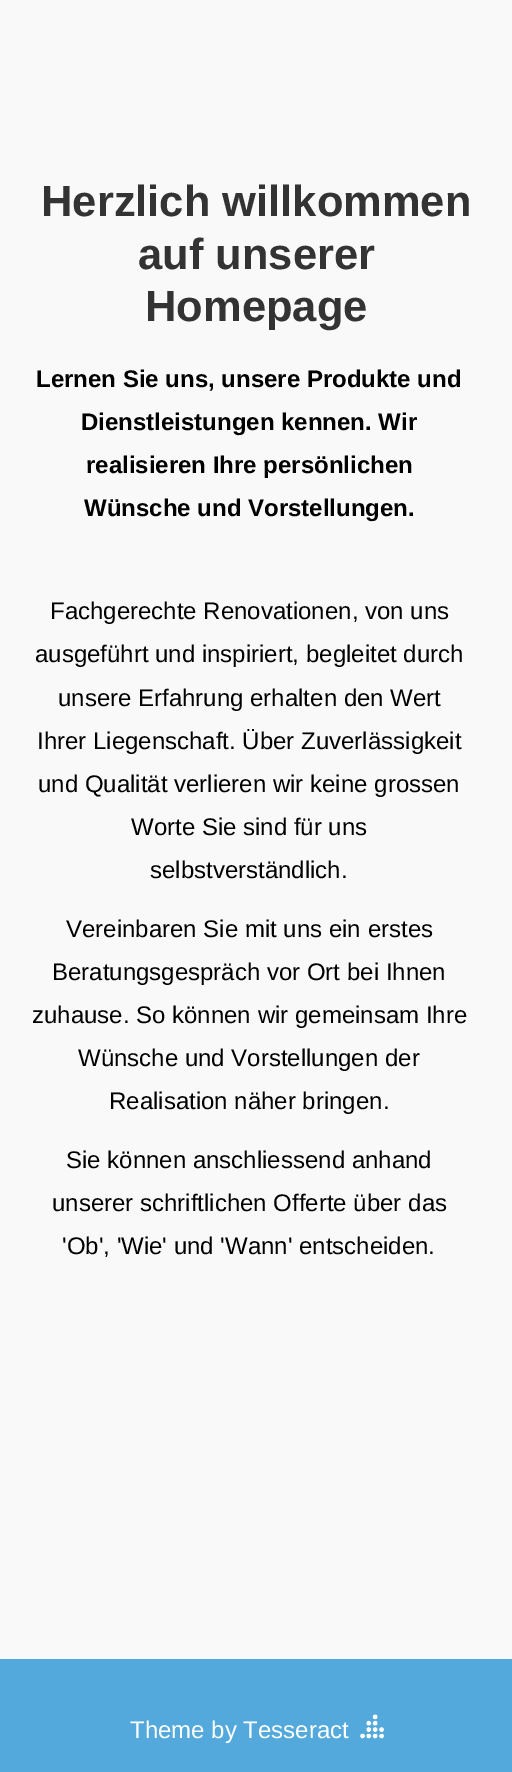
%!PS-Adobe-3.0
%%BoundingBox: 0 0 512 1772
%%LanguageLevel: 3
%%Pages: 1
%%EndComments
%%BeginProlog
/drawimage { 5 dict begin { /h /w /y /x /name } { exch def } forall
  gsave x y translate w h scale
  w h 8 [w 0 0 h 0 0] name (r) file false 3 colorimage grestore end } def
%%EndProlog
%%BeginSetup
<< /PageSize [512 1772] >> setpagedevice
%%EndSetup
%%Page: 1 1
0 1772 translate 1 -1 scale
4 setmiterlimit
0.976 setgray
0 0 512 1772 rectfill
0.325 0.663 0.859 setrgbcolor
0 1659 512 113 rectfill
(images/1.raw) 360 1714 24 25 drawimage
/LiberationSans-Bold [43.5 0 0 -43.5 0 0] selectfont
0.2 setgray
41 216 moveto (Herzlich willkommen) show
138 269 moveto (auf unserer) show
145 321 moveto (Homepage) show
/LiberationSans-Bold [24 0 0 -24 0 0] selectfont
0 setgray
36 387 moveto (Lernen Sie uns, unsere Produkte und) show
81 430 moveto (Dienstleistungen kennen. Wir) show
86 473 moveto (realisieren Ihre persönlichen) show
84 516 moveto (Wünsche und Vorstellungen.) show
/LiberationSans-Regular [24 0 0 -24 0 0] selectfont
50 619 moveto (Fachgerechte Renovationen, von uns) show
35 662 moveto (ausgeführt und inspiriert, begleitet durch) show
58 706 moveto (unsere Erfahrung erhalten den Wert) show
37 749 moveto (Ihrer Liegenschaft. Über Zuverlässigkeit) show
38 792 moveto (und Qualität verlieren wir keine grossen) show
131 835 moveto (Worte Sie sind für uns) show
150 878 moveto (selbstverständlich.) show
66 937 moveto (Vereinbaren Sie mit uns ein erstes) show
52 980 moveto (Beratungsgespräch vor Ort bei Ihnen) show
32 1023 moveto (zuhause. So können wir gemeinsam Ihre) show
78 1066 moveto (Wünsche und Vorstellungen der) show
109 1109 moveto (Realisation näher bringen.) show
66 1168 moveto (Sie können anschliessend anhand) show
52 1211 moveto (unserer schriftlichen Offerte über das) show
62 1254 moveto ('Ob', 'Wie' und 'Wann' entscheiden.) show
1 setgray
130 1738 moveto (Theme by Tesseract) show
showpage
%%EOF
